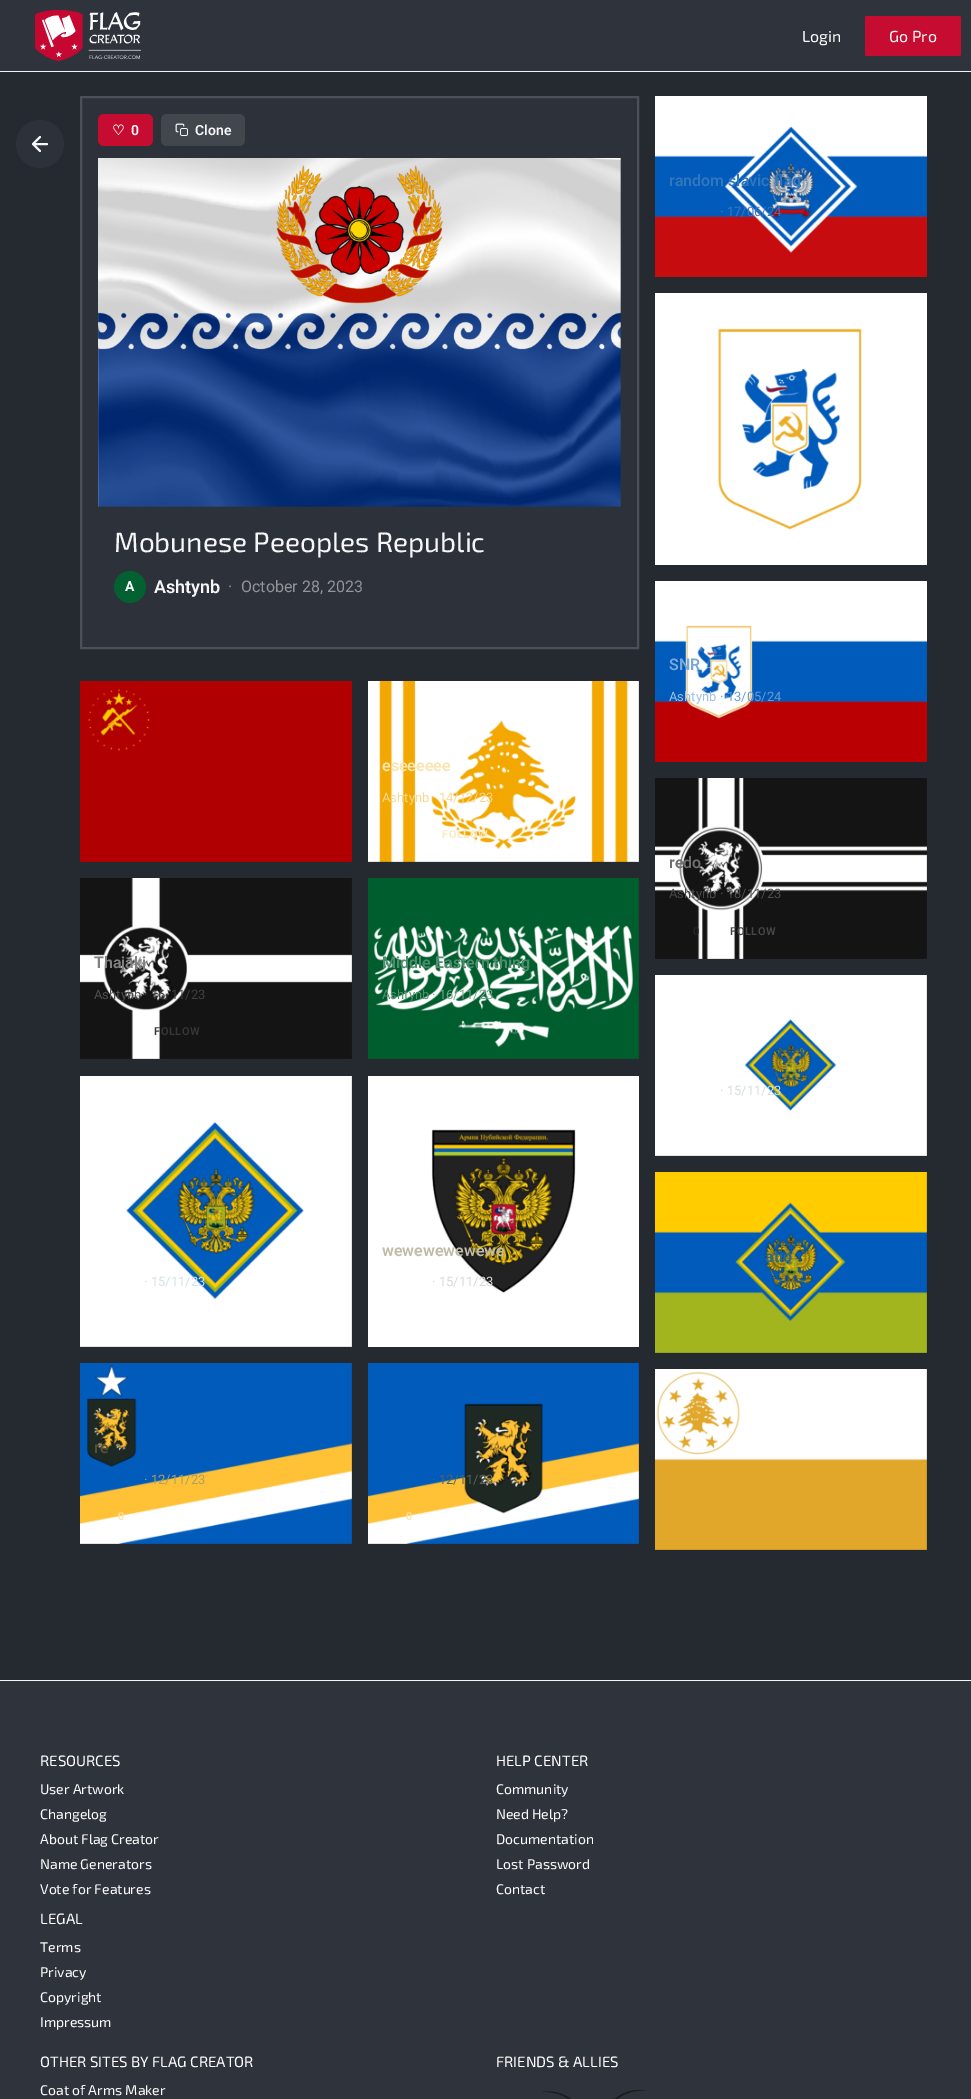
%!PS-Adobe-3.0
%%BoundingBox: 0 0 971 2099
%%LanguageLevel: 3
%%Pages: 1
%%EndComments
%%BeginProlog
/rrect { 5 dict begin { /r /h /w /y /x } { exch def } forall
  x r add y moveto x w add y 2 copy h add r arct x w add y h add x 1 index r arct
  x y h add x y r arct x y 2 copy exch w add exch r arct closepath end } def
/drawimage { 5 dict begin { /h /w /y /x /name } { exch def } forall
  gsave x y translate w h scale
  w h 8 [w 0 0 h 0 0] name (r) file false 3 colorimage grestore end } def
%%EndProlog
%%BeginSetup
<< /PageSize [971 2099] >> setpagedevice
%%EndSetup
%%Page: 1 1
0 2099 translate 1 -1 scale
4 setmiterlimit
0.145 0.165 0.192 setrgbcolor
0 0 971 2099 rectfill
0.184 0.204 0.235 setrgbcolor
0 0 971 71 rectfill
0.949 0.961 0.969 setrgbcolor
0 71 971 1 rectfill
(images/1.raw) 35 10 106 51 drawimage
0.776 0.047 0.188 setrgbcolor
865 16 96 40 2 rrect fill
0.176 0.192 0.224 setrgbcolor
newpath 40 144 24 0 360 arc closepath fill
0.965 0.969 0.976 setrgbcolor
2 setlinewidth
1 setlinecap
1 setlinejoin
newpath 47 144 moveto 33 144 lineto 40 151 moveto 33 144 lineto 40 137 lineto stroke
0.176 0.192 0.224 setrgbcolor
newpath 81 97 moveto 638 97 lineto 638 648 lineto 81 648 lineto closepath gsave fill grestore
0.302 0.314 0.341 setrgbcolor
0 setlinecap
0 setlinejoin
stroke
0.776 0.047 0.188 setrgbcolor
98 114 55 32 6 rrect fill
0.259 0.275 0.302 setrgbcolor
161 114 84 32 6 rrect fill
(images/2.raw) 175 123 13 13 drawimage
(images/3.raw) 98 158 523 349 drawimage
0.008 0.376 0.192 setrgbcolor
newpath 130 587 16 0 360 arc closepath fill
(images/4.raw) 655 96 272 181 drawimage
(images/5.raw) 655 293 272 272 drawimage
(images/6.raw) 80 681 272 181 drawimage
(images/7.raw) 368 681 271 181 drawimage
(images/8.raw) 655 581 272 181 drawimage
(images/9.raw) 655 778 272 181 drawimage
(images/10.raw) 80 878 272 181 drawimage
(images/11.raw) 368 878 271 181 drawimage
(images/12.raw) 655 975 272 181 drawimage
(images/13.raw) 368 1076 271 271 drawimage
(images/14.raw) 655 1172 272 181 drawimage
(images/15.raw) 80 1076 272 271 drawimage
(images/16.raw) 80 1363 272 181 drawimage
(images/17.raw) 368 1363 271 181 drawimage
(images/18.raw) 655 1369 272 181 drawimage
0.184 0.204 0.235 setrgbcolor
0 1681 971 418 rectfill
0.961 setgray
0 1680 971 1 rectfill
(images/19.raw) 542 2090 104 9 drawimage
/Exo2-Regular [16 0 0 -16 0 0] selectfont
1 setgray
802 42 moveto (Login) show
889 42 moveto (Go Pro) show
/DejaVuSans-Bold [14 0 0 -14 0 0] selectfont
112 135 moveto (♡) show
/Roboto-SemiBold [14 0 0 -14 0 0] selectfont
131 135 moveto (0) show
0.965 0.969 0.976 setrgbcolor
195 135 moveto (Clone) show
/Exo2-Regular [28 0 0 -28 0 0] selectfont
114 552 moveto (Mobunese Peeoples Republic) show
/Roboto-Bold [14 0 0 -14 0 0] selectfont
1 setgray
125 591 moveto (A) show
/Roboto-SemiBold [18 0 0 -18 0 0] selectfont
0.965 0.969 0.976 setrgbcolor
154 593 moveto (Ashtynb) show
/Roboto-Regular [16 0 0 -16 0 0] selectfont
0.573 0.58 0.6 setrgbcolor
228 592 moveto (·) show
241 592 moveto (October 28, 2023) show
/Roboto-SemiBold [16 0 0 -16 0 0] selectfont
0.196 0.463 0.741 setrgbcolor
669 186 moveto (random slavic flag) show
/Roboto-Regular [13 0 0 -13 0 0] selectfont
0.275 0.455 0.714 setrgbcolor
720 216 moveto (· 17/06/24) show
/Roboto-SemiBold [16 0 0 -16 0 0] selectfont
0.984 0.894 0.69 setrgbcolor
382 771 moveto (eseeeeee) show
/Roboto-Regular [13 0 0 -13 0 0] selectfont
0.976 0.847 0.557 setrgbcolor
382 802 moveto (Ashtynb) show
432 802 moveto (· 14/12/23) show
/Roboto-SemiBold [11 0 0 -11 0 0] selectfont
0.984 0.914 0.749 setrgbcolor
442 838 moveto 0.5 0 (FOLLOW) ashow
/Roboto-SemiBold [16 0 0 -16 0 0] selectfont
0.478 0.659 0.839 setrgbcolor
669 670 moveto (SNR) show
/Roboto-Regular [13 0 0 -13 0 0] selectfont
0.627 0.757 0.886 setrgbcolor
669 701 moveto (Ashtynb) show
0.404 0.608 0.824 setrgbcolor
720 701 moveto (· 13/05/24) show
/Roboto-SemiBold [16 0 0 -16 0 0] selectfont
0.431 setgray
669 868 moveto (redo) show
/Roboto-Regular [13 0 0 -13 0 0] selectfont
0.282 setgray
669 898 moveto (Ashtynb) show
0.31 setgray
720 898 moveto (· 18/11/23) show
/Roboto-SemiBold [11 0 0 -11 0 0] selectfont
0.149 setgray
693 935 moveto (0) show
0.282 setgray
730 935 moveto 0.5 0 (FOLLOW) ashow
/Roboto-SemiBold [16 0 0 -16 0 0] selectfont
0.506 setgray
94 968 moveto (Thajakj) show
/Roboto-Regular [13 0 0 -13 0 0] selectfont
0.31 setgray
94 999 moveto (Ashtynb) show
0.247 setgray
144 999 moveto (· 16/11/23) show
/Roboto-SemiBold [11 0 0 -11 0 0] selectfont
0.216 setgray
154 1035 moveto 0.5 0 (FOLLOW) ashow
/Roboto-SemiBold [16 0 0 -16 0 0] selectfont
0.294 0.553 0.424 setrgbcolor
382 968 moveto (Middle Eastern thing) show
/Roboto-Regular [13 0 0 -13 0 0] selectfont
0.329 0.573 0.447 setrgbcolor
382 999 moveto (Ashtynb) show
0.463 0.659 0.561 setrgbcolor
432 999 moveto (· 16/11/23) show
0.831 0.878 0.863 setrgbcolor
720 1095 moveto (· 15/11/23) show
/Roboto-SemiBold [16 0 0 -16 0 0] selectfont
0.753 0.733 0.655 setrgbcolor
382 1256 moveto (wewewewewewe) show
/Roboto-Regular [13 0 0 -13 0 0] selectfont
0.851 setgray
432 1286 moveto (· 15/11/23) show
/Roboto-SemiBold [16 0 0 -16 0 0] selectfont
0.161 0.408 0.561 setrgbcolor
765 1262 moveto (atio) show
/Roboto-Regular [13 0 0 -13 0 0] selectfont
0.827 0.886 0.902 setrgbcolor
144 1286 moveto (· 15/11/23) show
/Roboto-SemiBold [16 0 0 -16 0 0] selectfont
0.325 0.314 0.212 setrgbcolor
94 1453 moveto (re) show
/Roboto-Regular [13 0 0 -13 0 0] selectfont
0.682 0.627 0.376 setrgbcolor
144 1484 moveto (· 12/11/23) show
/Roboto-SemiBold [11 0 0 -11 0 0] selectfont
1 0.89 0.647 setrgbcolor
118 1520 moveto (0) show
/Roboto-Regular [13 0 0 -13 0 0] selectfont
0.333 0.392 0.361 setrgbcolor
432 1484 moveto (· 12/11/23) show
/Roboto-SemiBold [11 0 0 -11 0 0] selectfont
1 0.89 0.647 setrgbcolor
406 1520 moveto (0) show
/Exo2-Regular [15 0 0 -15 0 0] selectfont
1 setgray
40 1766 moveto (RESOURCES) show
/Exo2-Regular [14 0 0 -14 0 0] selectfont
40 1794 moveto (User Artwork) show
40 1819 moveto (Changelog) show
40 1844 moveto (About Flag Creator) show
40 1869 moveto (Name Generators) show
40 1894 moveto (Vote for Features) show
/Exo2-Regular [15 0 0 -15 0 0] selectfont
40 1924 moveto (LEGAL) show
/Exo2-Regular [14 0 0 -14 0 0] selectfont
40 1952 moveto (Terms) show
40 1977 moveto (Privacy) show
40 2002 moveto (Copyright) show
40 2027 moveto (Impressum) show
/Exo2-Regular [15 0 0 -15 0 0] selectfont
496 1766 moveto (HELP CENTER) show
/Exo2-Regular [14 0 0 -14 0 0] selectfont
496 1794 moveto (Community) show
496 1819 moveto (Need Help?) show
496 1844 moveto (Documentation) show
496 1869 moveto (Lost Password) show
496 1894 moveto (Contact) show
/Exo2-Regular [15 0 0 -15 0 0] selectfont
40 2067 moveto (OTHER SITES BY FLAG CREATOR) show
/Exo2-Regular [14 0 0 -14 0 0] selectfont
40 2095 moveto (Coat of Arms Maker) show
/Exo2-Regular [15 0 0 -15 0 0] selectfont
496 2067 moveto (FRIENDS & ALLIES) show
showpage
%%EOF
